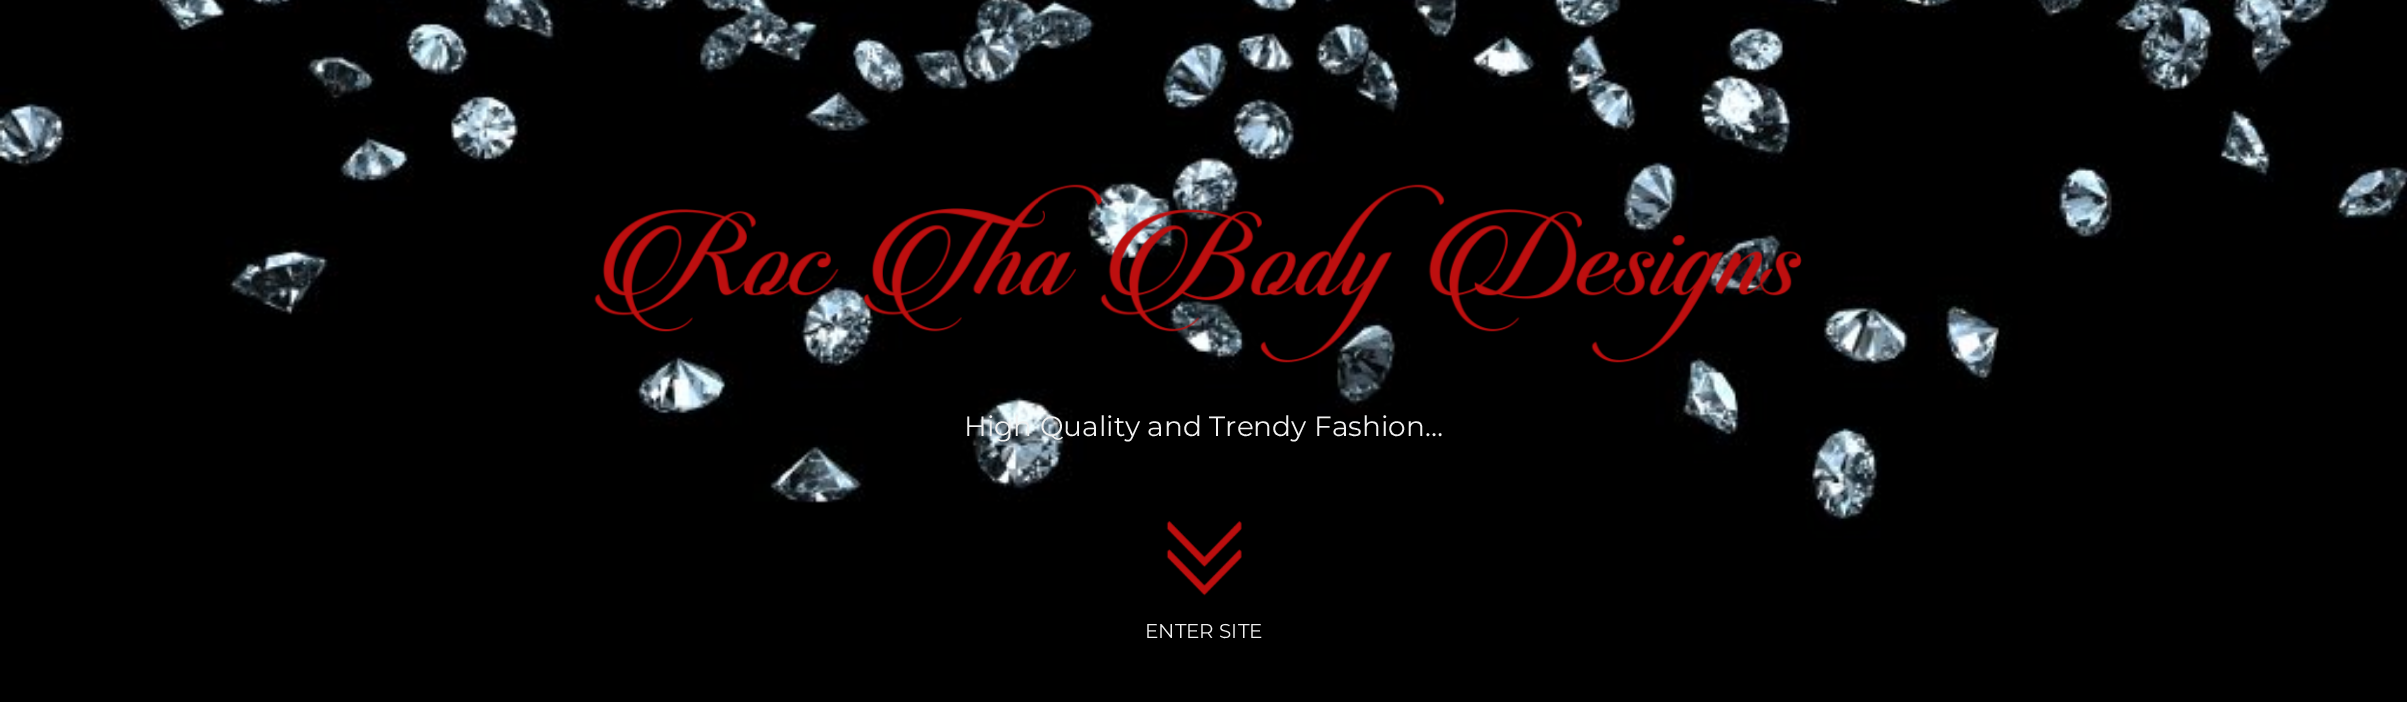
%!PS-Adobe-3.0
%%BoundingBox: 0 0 2407 702
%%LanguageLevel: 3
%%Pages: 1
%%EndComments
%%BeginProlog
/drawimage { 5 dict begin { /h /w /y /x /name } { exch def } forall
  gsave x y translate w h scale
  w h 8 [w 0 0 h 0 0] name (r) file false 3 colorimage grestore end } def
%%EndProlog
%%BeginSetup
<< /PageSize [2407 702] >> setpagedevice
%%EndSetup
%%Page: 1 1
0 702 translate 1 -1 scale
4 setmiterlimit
1 setgray
0 0 2407 702 rectfill
(images/1.raw) 0 0 2407 702 drawimage
(images/2.raw) 594 184 1208 179 drawimage
(images/3.raw) 1166 521 76 75 drawimage
/Montserrat-Thin [28 0 0 -28 0 0] selectfont
0.945 setgray
964 436 moveto (High Quality and Trendy Fashion…) show
/Montserrat-Thin [20 0 0 -20 0 0] selectfont
1145 638 moveto (ENTER SITE) show
showpage
%%EOF
